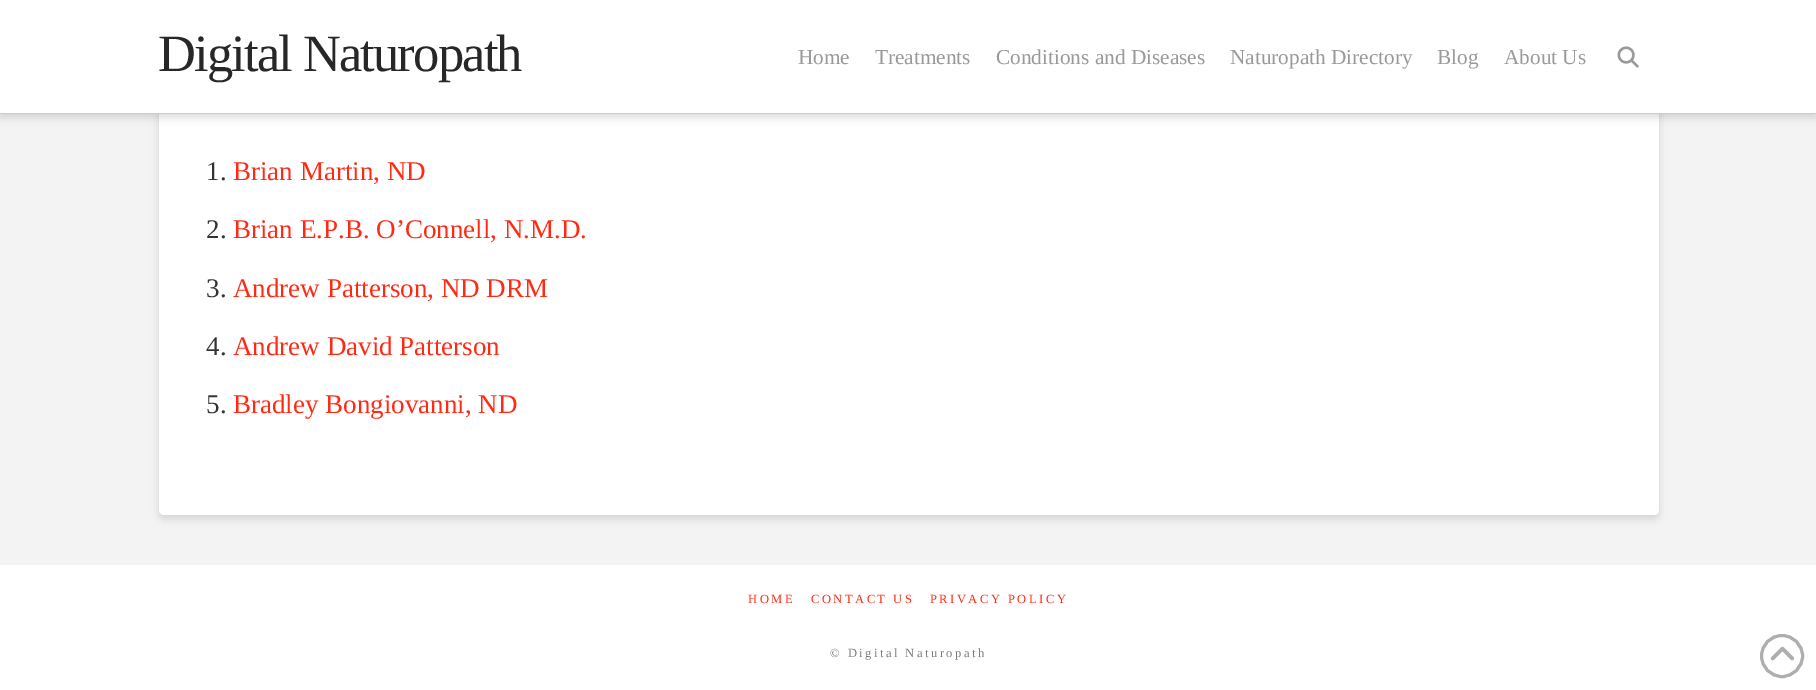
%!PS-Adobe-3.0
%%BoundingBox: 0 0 1816 690
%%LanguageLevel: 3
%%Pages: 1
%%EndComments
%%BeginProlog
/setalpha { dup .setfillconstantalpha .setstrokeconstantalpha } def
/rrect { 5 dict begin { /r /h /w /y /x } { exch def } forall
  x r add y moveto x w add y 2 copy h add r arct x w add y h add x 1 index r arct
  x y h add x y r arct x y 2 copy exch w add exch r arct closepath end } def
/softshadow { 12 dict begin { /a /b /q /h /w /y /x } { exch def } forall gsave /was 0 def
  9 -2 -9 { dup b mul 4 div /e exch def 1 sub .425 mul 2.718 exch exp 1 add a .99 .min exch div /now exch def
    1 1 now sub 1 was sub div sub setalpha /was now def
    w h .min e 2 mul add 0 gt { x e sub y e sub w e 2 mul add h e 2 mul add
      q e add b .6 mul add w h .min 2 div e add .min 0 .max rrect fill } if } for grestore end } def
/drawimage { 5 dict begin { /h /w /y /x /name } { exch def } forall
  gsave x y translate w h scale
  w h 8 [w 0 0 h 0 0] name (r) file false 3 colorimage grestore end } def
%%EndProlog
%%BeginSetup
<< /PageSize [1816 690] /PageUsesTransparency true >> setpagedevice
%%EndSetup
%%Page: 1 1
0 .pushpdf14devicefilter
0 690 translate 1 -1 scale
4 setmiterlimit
0.953 setgray
0 0 1816 690 rectfill
0 setgray
159 -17 1500 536 5 4 0.13 softshadow
1 setgray
159 -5 1500 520 5 rrect fill
0 setgray
0 4 1816 114 0 4 0.13 softshadow
1 setgray
0 0 1816 113 rectfill
0.8 setgray
0 113 1816 1 rectfill
(images/1.raw) 1617 46 22 22 drawimage
1 setgray
0 565 1816 125 rectfill
0.682 setgray
3 setlinewidth
newpath 1782 656 20.5 0 360 arc closepath stroke
(images/2.raw) 1770 646 25 15 drawimage
/LiberationSerif-Regular [52.5 0 0 -52.5 0 0] selectfont
0.153 setgray
158 71 moveto -1.8 0 (Digital Naturopath) ashow
/LiberationSerif-Regular [21.25 0 0 -21.25 0 0] selectfont
0.6 setgray
798 64 moveto (Home) show
875 64 moveto (Treatments) show
996 64 moveto (Conditions and Diseases) show
1230 64 moveto (Naturopath Directory) show
1437 64 moveto (Blog) show
1504 64 moveto (About Us) show
/LiberationSerif-Regular [27 0 0 -27 0 0] selectfont
0.2 setgray
206 180 moveto (1.) show
1 0.165 0.075 setrgbcolor
233 180 moveto (Brian Martin, ND) show
0.2 setgray
206 238 moveto (2.) show
1 0.165 0.075 setrgbcolor
233 238 moveto (Brian E.P.B. O’Connell, N.M.D.) show
0.2 setgray
206 297 moveto (3.) show
1 0.165 0.075 setrgbcolor
233 297 moveto (Andrew Patterson, ND DRM) show
0.2 setgray
206 355 moveto (4.) show
1 0.165 0.075 setrgbcolor
233 355 moveto (Andrew David Patterson) show
0.2 setgray
206 413 moveto (5.) show
1 0.165 0.075 setrgbcolor
233 413 moveto (Bradley Bongiovanni, ND) show
/LiberationSerif-Regular [12.5 0 0 -12.5 0 0] selectfont
748 603 moveto 2.5 0 (HOME) ashow
811 603 moveto 2.5 0 (CONTACT US) ashow
930 603 moveto 2.5 0 (PRIVACY POLICY) ashow
0.478 setgray
830 657 moveto 2.5 0 (© Digital Naturopath) ashow
.poppdf14devicefilter showpage
%%EOF
